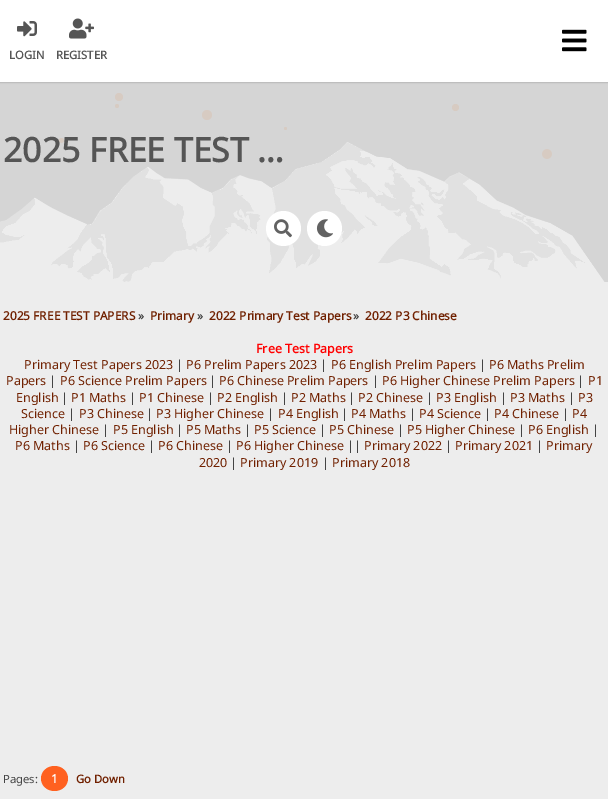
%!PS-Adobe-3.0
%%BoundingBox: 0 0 608 799
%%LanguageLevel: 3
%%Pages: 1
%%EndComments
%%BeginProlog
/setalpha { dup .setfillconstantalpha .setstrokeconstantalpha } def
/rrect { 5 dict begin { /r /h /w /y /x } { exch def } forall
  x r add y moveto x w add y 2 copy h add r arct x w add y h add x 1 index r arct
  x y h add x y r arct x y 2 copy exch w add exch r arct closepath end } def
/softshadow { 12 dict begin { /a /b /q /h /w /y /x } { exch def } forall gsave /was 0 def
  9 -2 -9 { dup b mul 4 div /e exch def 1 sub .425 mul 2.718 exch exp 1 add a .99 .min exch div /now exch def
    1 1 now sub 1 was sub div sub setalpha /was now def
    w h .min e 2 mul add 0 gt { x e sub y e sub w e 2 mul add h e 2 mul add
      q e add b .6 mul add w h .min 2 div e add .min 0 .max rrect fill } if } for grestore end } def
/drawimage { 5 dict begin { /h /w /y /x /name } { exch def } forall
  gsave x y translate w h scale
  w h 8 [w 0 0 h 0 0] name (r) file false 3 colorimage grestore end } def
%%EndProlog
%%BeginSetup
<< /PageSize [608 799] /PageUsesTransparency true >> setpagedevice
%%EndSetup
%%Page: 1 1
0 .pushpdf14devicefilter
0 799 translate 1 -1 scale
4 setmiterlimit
0.929 setgray
0 0 608 799 rectfill
0.835 setgray
0 82 608 200 rectfill
0 setgray
0 0 608 82 0 1 0.33 softshadow
1 setgray
0 0 608 82 rectfill
(images/1.raw) 562 29 25 23 drawimage
(images/2.raw) 17 21 20 16 drawimage
(images/3.raw) 69 18 25 21 drawimage
0.843 0.796 0.761 setrgbcolor
newpath 119 97 4 0 360 arc closepath fill
newpath 117 106 2 0 360 arc closepath fill
newpath 455.5 107.5 3.5 0 360 arc closepath fill
newpath 207 115 5 0 360 arc closepath fill
newpath 285.5 128.5 1.5 0 360 arc closepath fill
newpath 61.5 140.5 2.5 0 360 arc closepath fill
newpath 547 154 5 0 360 arc closepath fill
(images/4.raw) 0 142 605 140 drawimage
1 setgray
newpath 283.5 228.5 17.5 0 360 arc closepath fill
(images/5.raw) 274 219 18 19 drawimage
newpath 324.5 228.5 17.5 0 360 arc closepath fill
(images/6.raw) 316 219 17 19 drawimage
1 0.38 0.125 setrgbcolor
newpath 54.5 766 moveto 62 766 68 771.5 68 778.5 curveto 68 785.5 62 791 54.5 791 curveto 47 791 41 785.5 41 778.5 curveto 41 771.5 47 766 54.5 766 curveto closepath fill
/NotoSans-Bold [11.25 0 0 -11.25 0 0] selectfont
0.333 setgray
9 59 moveto (LOGIN) show
56 59 moveto (REGISTER) show
/NotoSans-Bold [33.75 0 0 -33.75 0 0] selectfont
3 162 moveto (2025 FREE TEST …) show
/NotoSans-Bold [11.9 0 0 -11.9 0 0] selectfont
0.439 0.125 0 setrgbcolor
3 320 moveto (2025 FREE TEST PAPERS) show
0.267 setgray
138 320 moveto (») show
0.439 0.125 0 setrgbcolor
150 320 moveto (Primary) show
0.267 setgray
197 320 moveto (») show
0.439 0.125 0 setrgbcolor
209 320 moveto (2022 Primary Test Papers) show
0.267 setgray
353 320 moveto (») show
0.439 0.125 0 setrgbcolor
365 320 moveto (2022 P3 Chinese) show
/NotoSans-Bold [12.5 0 0 -12.5 0 0] selectfont
1 0 0 setrgbcolor
256 353 moveto (Free Test Papers) show
/NotoSans-Regular [12.5 0 0 -12.5 0 0] selectfont
0.439 0.125 0 setrgbcolor
24 369 moveto (Primary Test Papers 2023) show
0.267 setgray
176 369 moveto (|) show
0.439 0.125 0 setrgbcolor
186 369 moveto (P6 Prelim Papers 2023) show
0.267 setgray
320 369 moveto (|) show
0.439 0.125 0 setrgbcolor
331 369 moveto (P6 English Prelim Papers) show
0.267 setgray
479 369 moveto (|) show
0.439 0.125 0 setrgbcolor
489 369 moveto (P6 Maths Prelim) show
6 385 moveto (Papers) show
0.267 setgray
49 385 moveto (|) show
0.439 0.125 0 setrgbcolor
60 385 moveto (P6 Science Prelim Papers) show
0.267 setgray
209 385 moveto (|) show
0.439 0.125 0 setrgbcolor
219 385 moveto (P6 Chinese Prelim Papers) show
0.267 setgray
372 385 moveto (|) show
0.439 0.125 0 setrgbcolor
382 385 moveto (P6 Higher Chinese Prelim Papers) show
0.267 setgray
577 385 moveto (|) show
0.439 0.125 0 setrgbcolor
588 385 moveto (P1) show
16 402 moveto (English) show
0.267 setgray
61 402 moveto (|) show
0.439 0.125 0 setrgbcolor
71 402 moveto (P1 Maths) show
0.267 setgray
129 402 moveto (|) show
0.439 0.125 0 setrgbcolor
139 402 moveto (P1 Chinese) show
0.267 setgray
207 402 moveto (|) show
0.439 0.125 0 setrgbcolor
217 402 moveto (P2 English) show
0.267 setgray
281 402 moveto (|) show
0.439 0.125 0 setrgbcolor
291 402 moveto (P2 Maths) show
0.267 setgray
348 402 moveto (|) show
0.439 0.125 0 setrgbcolor
358 402 moveto (P2 Chinese) show
0.267 setgray
426 402 moveto (|) show
0.439 0.125 0 setrgbcolor
436 402 moveto (P3 English) show
0.267 setgray
500 402 moveto (|) show
0.439 0.125 0 setrgbcolor
510 402 moveto (P3 Maths) show
0.267 setgray
568 402 moveto (|) show
0.439 0.125 0 setrgbcolor
578 402 moveto (P3) show
21 418 moveto (Science) show
0.267 setgray
68 418 moveto (|) show
0.439 0.125 0 setrgbcolor
79 418 moveto (P3 Chinese) show
0.267 setgray
146 418 moveto (|) show
0.439 0.125 0 setrgbcolor
156 418 moveto (P3 Higher Chinese) show
0.267 setgray
267 418 moveto (|) show
0.439 0.125 0 setrgbcolor
278 418 moveto (P4 English) show
0.267 setgray
341 418 moveto (|) show
0.439 0.125 0 setrgbcolor
351 418 moveto (P4 Maths) show
0.267 setgray
409 418 moveto (|) show
0.439 0.125 0 setrgbcolor
419 418 moveto (P4 Science) show
0.267 setgray
484 418 moveto (|) show
0.439 0.125 0 setrgbcolor
494 418 moveto (P4 Chinese) show
0.267 setgray
562 418 moveto (|) show
0.439 0.125 0 setrgbcolor
572 418 moveto (P4) show
9 434 moveto (Higher Chinese) show
0.267 setgray
102 434 moveto (|) show
0.439 0.125 0 setrgbcolor
113 434 moveto (P5 English) show
0.267 setgray
176 434 moveto (|) show
0.439 0.125 0 setrgbcolor
186 434 moveto (P5 Maths) show
0.267 setgray
244 434 moveto (|) show
0.439 0.125 0 setrgbcolor
254 434 moveto (P5 Science) show
0.267 setgray
319 434 moveto (|) show
0.439 0.125 0 setrgbcolor
329 434 moveto (P5 Chinese) show
0.267 setgray
397 434 moveto (|) show
0.439 0.125 0 setrgbcolor
407 434 moveto (P5 Higher Chinese) show
0.267 setgray
518 434 moveto (|) show
0.439 0.125 0 setrgbcolor
528 434 moveto (P6 English) show
0.267 setgray
592 434 moveto (|) show
0.439 0.125 0 setrgbcolor
15 450 moveto (P6 Maths) show
0.267 setgray
73 450 moveto (|) show
0.439 0.125 0 setrgbcolor
83 450 moveto (P6 Science) show
0.267 setgray
148 450 moveto (|) show
0.439 0.125 0 setrgbcolor
158 450 moveto (P6 Chinese) show
0.267 setgray
226 450 moveto (|) show
0.439 0.125 0 setrgbcolor
236 450 moveto (P6 Higher Chinese) show
0.267 setgray
347 450 moveto (||) show
0.439 0.125 0 setrgbcolor
364 450 moveto (Primary 2022) show
0.267 setgray
445 450 moveto (|) show
0.439 0.125 0 setrgbcolor
455 450 moveto (Primary 2021) show
0.267 setgray
536 450 moveto (|) show
0.439 0.125 0 setrgbcolor
546 450 moveto (Primary) show
199 467 moveto (2020) show
0.267 setgray
230 467 moveto (|) show
0.439 0.125 0 setrgbcolor
240 467 moveto (Primary 2019) show
0.267 setgray
322 467 moveto (|) show
0.439 0.125 0 setrgbcolor
332 467 moveto (Primary 2018) show
/NotoSans-Regular [11.25 0 0 -11.25 0 0] selectfont
0.267 setgray
3 783 moveto (Pages:) show
/NotoSans-Bold [12 0 0 -12 0 0] selectfont
1 setgray
51 783 moveto (1) show
/NotoSans-Bold [11.25 0 0 -11.25 0 0] selectfont
0.439 0.125 0 setrgbcolor
76 783 moveto (Go Down) show
.poppdf14devicefilter showpage
%%EOF
